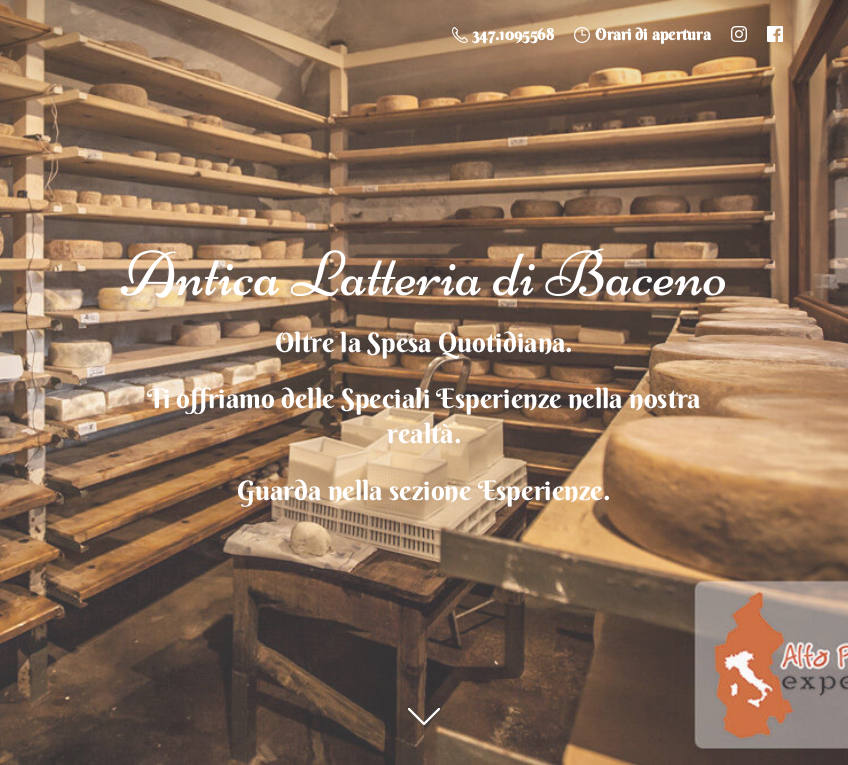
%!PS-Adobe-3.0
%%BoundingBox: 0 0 848 765
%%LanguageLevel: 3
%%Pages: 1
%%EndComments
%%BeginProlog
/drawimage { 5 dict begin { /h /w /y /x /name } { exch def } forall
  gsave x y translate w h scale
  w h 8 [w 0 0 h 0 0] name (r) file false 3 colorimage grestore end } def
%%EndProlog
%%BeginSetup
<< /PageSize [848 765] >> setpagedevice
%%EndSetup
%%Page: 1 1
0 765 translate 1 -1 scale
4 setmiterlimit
1 setgray
0 0 848 765 rectfill
(images/1.raw) 0 0 848 765 drawimage
(images/2.raw) 452 27 16 16 drawimage
(images/3.raw) 574 27 16 16 drawimage
(images/4.raw) 731 26 16 16 drawimage
(images/5.raw) 767 26 16 16 drawimage
(images/6.raw) 120 250 361 48 drawimage
(images/7.raw) 493 248 233 49 drawimage
2 setlinewidth
1 setlinecap
1 setlinejoin
newpath 439 709 moveto 424 724 lineto 409 709 lineto stroke
/BerkshireSwash-Bold [16 0 0 -16 0 0] selectfont
472 40 moveto (347.1095568) show
595 40 moveto (Orari di apertura) show
/BerkshireSwash-Regular [27 0 0 -27 0 0] selectfont
275 352 moveto (Oltre la Spesa Quotidiana.) show
147 408 moveto (Ti offriamo delle Speciali Esperienze nella nostra) show
387 443 moveto (realtà.) show
237 500 moveto (Guarda nella sezione Esperienze.) show
showpage
%%EOF
